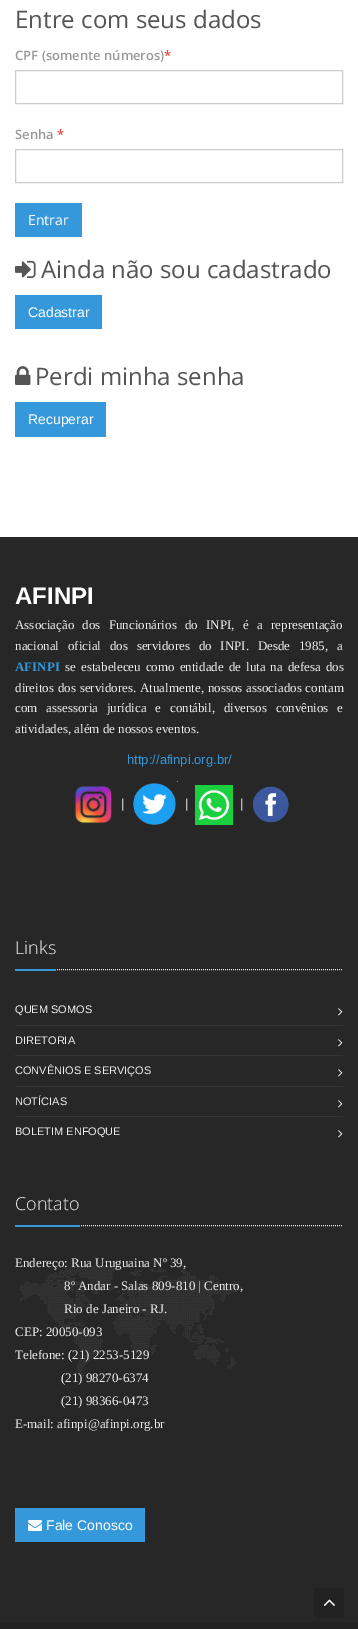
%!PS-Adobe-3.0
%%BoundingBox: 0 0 358 1629
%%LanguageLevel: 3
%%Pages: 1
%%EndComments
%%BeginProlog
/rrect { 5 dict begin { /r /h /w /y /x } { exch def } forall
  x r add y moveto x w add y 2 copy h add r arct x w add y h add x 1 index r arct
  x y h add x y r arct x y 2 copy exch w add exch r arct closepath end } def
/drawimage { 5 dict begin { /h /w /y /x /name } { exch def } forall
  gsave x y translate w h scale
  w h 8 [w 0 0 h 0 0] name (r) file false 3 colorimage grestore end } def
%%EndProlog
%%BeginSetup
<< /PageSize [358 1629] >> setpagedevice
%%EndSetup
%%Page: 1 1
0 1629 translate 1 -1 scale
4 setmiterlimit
1 setgray
0 0 358 1629 rectfill
0.8 setgray
15.5 70.5 327 33 rectstroke
15.5 149.5 327 33 rectstroke
0.204 0.596 0.859 setrgbcolor
15 203 67 34 rectfill
(images/1.raw) 15 260 21 18 drawimage
15 295 87 34 rectfill
(images/2.raw) 15 366 16 19 drawimage
15 402 91 35 rectfill
0.153 setgray
0 537 358 1085 rectfill
(images/3.raw) 74 786 38 38 drawimage
(images/4.raw) 133 781 45 44 drawimage
(images/5.raw) 195 785 38 40 drawimage
(images/6.raw) 252 786 37 37 drawimage
0.894 0.914 0.941 setrgbcolor
[1 1] 0 setdash
newpath 15 969.5 moveto 343 969.5 lineto stroke
0.204 0.596 0.859 setrgbcolor
15 969 41 2 rectfill
(images/7.raw) 338 1008 5 8 drawimage
0.208 setgray
15 1025 328 1 rectfill
(images/7.raw) 338 1039 5 8 drawimage
15 1055 328 1 rectfill
(images/7.raw) 338 1069 5 8 drawimage
15 1086 328 1 rectfill
(images/7.raw) 338 1100 5 8 drawimage
15 1116 328 1 rectfill
(images/7.raw) 338 1130 5 8 drawimage
(images/8.raw) 20 1265 222 111 drawimage
0.894 0.914 0.941 setrgbcolor
newpath 15 1225.5 moveto 343 1225.5 lineto stroke
0.204 0.596 0.859 setrgbcolor
15 1225 65 2 rectfill
15 1508 130 34 rectfill
(images/9.raw) 28 1520 14 11 drawimage
0.133 setgray
0 1622 358 7 rectfill
314 1588 30 30 3 rrect fill
(images/10.raw) 323 1599 12 7 drawimage
/OpenSans-Regular [24 0 0 -24 0 0] selectfont
0.333 setgray
15 28 moveto (Entre com seus dados) show
/OpenSans-SemiBold [13 0 0 -13 0 0] selectfont
0.6 setgray
15 60 moveto (CPF \(somente números\)) show
0.906 0.298 0.235 setrgbcolor
164 60 moveto (*) show
0.6 setgray
15 139 moveto (Senha) show
0.906 0.298 0.235 setrgbcolor
57 139 moveto (*) show
/OpenSans-Regular [14 0 0 -14 0 0] selectfont
1 setgray
28 225 moveto (Entrar) show
/OpenSans-Regular [24 0 0 -24 0 0] selectfont
0.333 setgray
41 278 moveto (Ainda não sou cadastrado) show
/LiberationSans-Regular [14 0 0 -14 0 0] selectfont
1 setgray
28 317 moveto (Cadastrar) show
/OpenSans-Regular [24 0 0 -24 0 0] selectfont
0.333 setgray
35 385 moveto (Perdi minha senha) show
/LiberationSans-Regular [14 0 0 -14 0 0] selectfont
1 setgray
28 424 moveto (Recuperar) show
/LiberationSans-Bold [24 0 0 -24 0 0] selectfont
15 604 moveto (AFINPI) show
/LiberationSerif-Regular [13 0 0 -13 0 0] selectfont
0.933 setgray
15 629 moveto 5 0 32 (Associação dos Funcionários do INPI, é a representação) widthshow
15 650 moveto 5.5 0 32 (nacional oficial dos servidores do INPI. Desde 1985, a) widthshow
/LiberationSerif-Bold [13 0 0 -13 0 0] selectfont
0.204 0.596 0.859 setrgbcolor
15 671 moveto (AFINPI) show
/LiberationSerif-Regular [13 0 0 -13 0 0] selectfont
0.933 setgray
65 671 moveto 1.75 0 32 (se estabeleceu como entidade de luta na defesa dos) widthshow
15 692 moveto 0.5 0 32 (direitos dos servidores. Atualmente, nossos associados contam) widthshow
15 712 moveto 5.5 0 32 (com assessoria jurídica e contábil, diversos convênios e) widthshow
15 733 moveto (atividades, além de nossos eventos.) show
/LiberationSans-Regular [13 0 0 -13 0 0] selectfont
0.204 0.596 0.859 setrgbcolor
127 764 moveto (http://afinpi.org.br/) show
0.933 setgray
121 808 moveto (|) show
185 808 moveto (|) show
240 808 moveto (|) show
/OpenSans-Light [18 0 0 -18 0 0] selectfont
15 954 moveto (Links) show
/LiberationSans-Regular [11 0 0 -11 0 0] selectfont
15 1013 moveto (QUEM SOMOS) show
15 1044 moveto (DIRETORIA) show
15 1074 moveto (CONVÊNIOS E SERVIÇOS) show
15 1105 moveto (NOTÍCIAS) show
15 1135 moveto (BOLETIM ENFOQUE) show
/OpenSans-Light [18 0 0 -18 0 0] selectfont
15 1210 moveto (Contato) show
/LiberationSerif-Regular [13 0 0 -13 0 0] selectfont
15 1267 moveto (Endereço: Rua Uruguaina Nº 39,) show
64 1290 moveto (8º Andar - Salas 809-810 | Centro,) show
64 1313 moveto (Rio de Janeiro - RJ.) show
15 1336 moveto (CEP: 20050-093) show
15 1359 moveto (Telefone: \(21\) 2253-5129) show
61 1382 moveto (\(21\) 98270-6374) show
61 1405 moveto (\(21\) 98366-0473) show
15 1428 moveto (E-mail: afinpi@afinpi.org.br) show
/LiberationSans-Regular [14 0 0 -14 0 0] selectfont
1 setgray
46 1530 moveto (Fale Conosco) show
showpage
%%EOF
